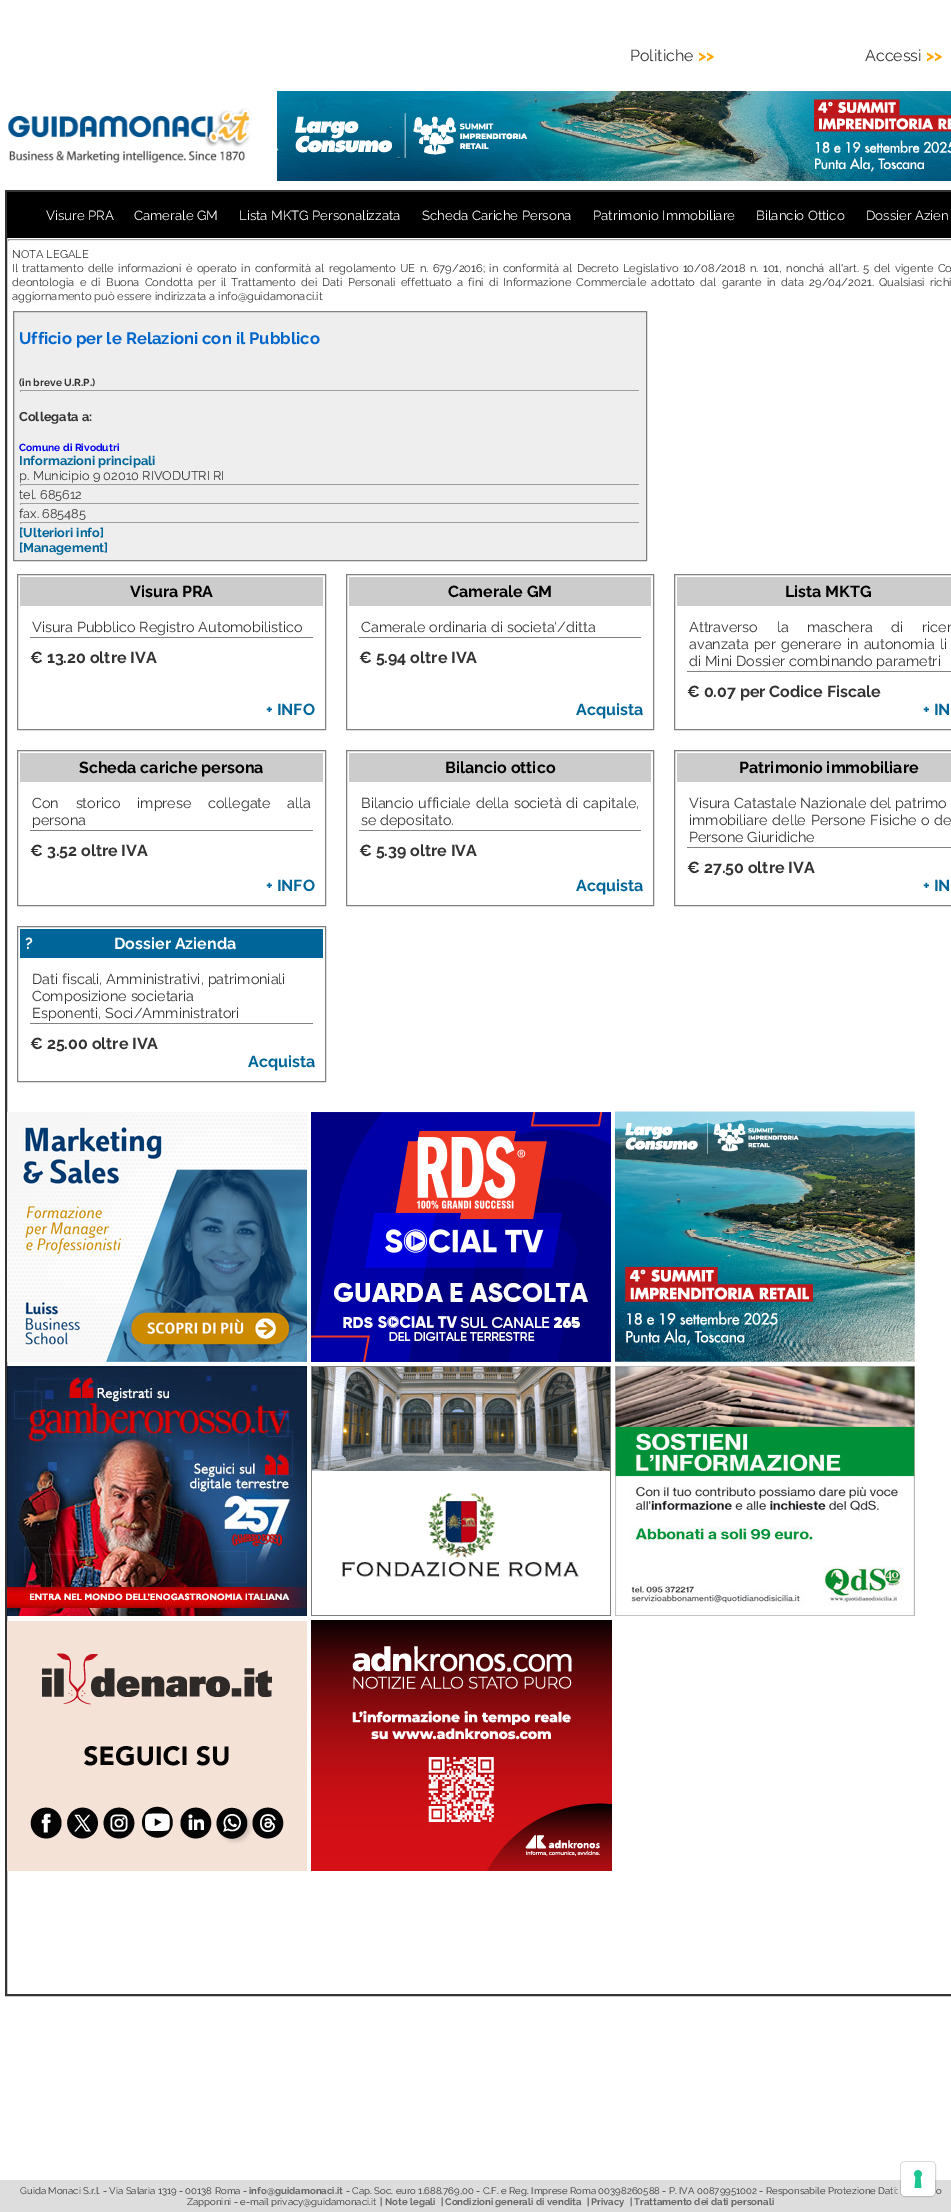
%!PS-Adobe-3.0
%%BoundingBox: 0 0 951 2212
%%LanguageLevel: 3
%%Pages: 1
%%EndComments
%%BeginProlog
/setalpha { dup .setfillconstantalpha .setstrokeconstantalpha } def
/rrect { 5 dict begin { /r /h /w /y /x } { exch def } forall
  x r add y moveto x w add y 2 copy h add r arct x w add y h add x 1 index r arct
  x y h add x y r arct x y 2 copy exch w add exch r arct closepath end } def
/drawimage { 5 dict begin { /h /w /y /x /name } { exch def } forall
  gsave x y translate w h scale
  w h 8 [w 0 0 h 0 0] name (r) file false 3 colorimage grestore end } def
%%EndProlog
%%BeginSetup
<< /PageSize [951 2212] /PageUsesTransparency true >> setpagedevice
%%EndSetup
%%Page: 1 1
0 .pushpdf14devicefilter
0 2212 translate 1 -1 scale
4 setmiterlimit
1 setgray
0 0 951 2212 rectfill
(images/1.raw) 8 108 244 55 drawimage
(images/2.raw) 277 91 674 90 drawimage
0.2 setgray
2 setlinewidth
6 191 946 1804 rectstroke
0 setgray
7 192 944 46 rectfill
0.624 setgray
8 239 943 1 rectfill
0.933 setgray
8 240 943 1 rectfill
0.624 setgray
8 239 1 2 rectfill
0.933 setgray
newpath 13.5 311.5 moveto 646.5 311.5 lineto 646.5 560.5 lineto 13.5 560.5 lineto closepath gsave fill grestore
0.502 setgray
1 setlinewidth
stroke
0.624 setgray
20 390 620 1 rectfill
0.933 setgray
639 390 1 2 rectfill
0.624 setgray
20 390 1 2 rectfill
20 484 620 1 rectfill
0.933 setgray
639 484 1 2 rectfill
0.624 setgray
20 484 1 2 rectfill
20 503 620 1 rectfill
0.933 setgray
639 503 1 2 rectfill
0.624 setgray
20 503 1 2 rectfill
20 522 620 1 rectfill
0.933 setgray
639 522 1 2 rectfill
0.624 setgray
20 522 1 2 rectfill
0.502 setgray
17.5 574.5 308 155 rectstroke
0.8 setgray
20 577 303 29 rectfill
0.502 setgray
30 637 283 1 rectfill
346.5 574.5 307 155 rectstroke
0.8 setgray
349 577 302 29 rectfill
0.502 setgray
359 637 282 1 rectfill
674.5 574.5 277 155 rectstroke
0.8 setgray
677 577 274 29 rectfill
0.502 setgray
687 671 264 1 rectfill
17.5 750.5 308 155 rectstroke
0.8 setgray
20 753 303 29 rectfill
0.502 setgray
30 830 283 1 rectfill
346.5 750.5 307 155 rectstroke
0.8 setgray
349 753 302 29 rectfill
0.502 setgray
359 830 282 1 rectfill
674.5 750.5 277 155 rectstroke
0.8 setgray
677 753 274 29 rectfill
0.502 setgray
687 847 264 1 rectfill
17.5 926.5 308 155 rectstroke
0 0.4 0.6 setrgbcolor
20 929 303 29 rectfill
0.502 setgray
30 1023 283 1 rectfill
(images/3.raw) 7 1112 300 250 drawimage
(images/4.raw) 311 1112 300 250 drawimage
(images/5.raw) 615 1111 300 251 drawimage
(images/6.raw) 7 1366 300 250 drawimage
(images/7.raw) 311 1366 300 250 drawimage
(images/8.raw) 615 1366 300 250 drawimage
(images/9.raw) 7 1621 300 250 drawimage
(images/10.raw) 311 1620 301 251 drawimage
0.867 setgray
0 2180 951 32 rectfill
0.15 setalpha
0 setgray
900.5 2161.5 35 35 4.5 rrect stroke
1 setalpha
1 setgray
901 2162 34 34 4 rrect fill
(images/11.raw) 914 2170 8 18 drawimage
/Raleway-Regular [16 0 0 -16 0 0] selectfont
0.2 setgray
630 61 moveto (Politiche) show
/Raleway-Bold [16 0 0 -16 0 0] selectfont
1 0.647 0 setrgbcolor
698 61 moveto (>>) show
/Raleway-Regular [16 0 0 -16 0 0] selectfont
0.2 setgray
865 61 moveto (Accessi) show
/Raleway-Bold [16 0 0 -16 0 0] selectfont
1 0.647 0 setrgbcolor
926 61 moveto (>>) show
/Raleway-Regular [13.25 0 0 -13.25 0 0] selectfont
1 setgray
46 220 moveto (Visure PRA) show
134 220 moveto (Camerale GM) show
239 220 moveto (Lista MKTG Personalizzata) show
422 220 moveto (Scheda Cariche Persona) show
593 220 moveto (Patrimonio Immobiliare) show
756 220 moveto (Bilancio Ottico) show
866 220 moveto (Dossier Azien) show
/Raleway-Regular [11.2 0 0 -11.2 0 0] selectfont
0.2 setgray
12 258 moveto (NOTA LEGALE) show
12 272 moveto 1.45 0 32 (Il trattamento delle informazioni è operato in conformità al regolamento UE n. 679/2016; in conformità al Decreto Legislativo 10/08/2018 n. 101, nonchá all'art. 5 del vigente Co) widthshow
12 286 moveto 2.4 0 32 (deontologia e di Buona Condotta per il Trattamento dei Dati Personali effettuato a fini di Informazione Commerciale adottato dal garante in data 29/04/2021. Qualsiasi richi) widthshow
12 300 moveto (aggiornamento può essere indirizzata a info@guidamonaci.it) show
/Raleway-Bold [16.6 0 0 -16.6 0 0] selectfont
0 0.4 0.8 setrgbcolor
19 344 moveto (Ufficio per le Relazioni con il Pubblico) show
/Raleway-Bold [10.25 0 0 -10.25 0 0] selectfont
0.2 setgray
19 386 moveto (\(in breve U.R.P.\)) show
/Raleway-Bold [12.75 0 0 -12.75 0 0] selectfont
19 421 moveto (Collegata a:) show
/Raleway-Bold [10.25 0 0 -10.25 0 0] selectfont
0 0 0.933 setrgbcolor
19 451 moveto (Comune di Rivodutri) show
/Raleway-Bold [12.75 0 0 -12.75 0 0] selectfont
0 0.4 0.6 setrgbcolor
19 465 moveto (Informazioni principali) show
/Raleway-Regular [12.75 0 0 -12.75 0 0] selectfont
0.2 setgray
19 480 moveto (p. Municipio 9 02010 RIVODUTRI RI) show
19 499 moveto (tel. 685612) show
19 518 moveto (fax. 685485) show
/Raleway-Bold [12.75 0 0 -12.75 0 0] selectfont
0 0.4 0.6 setrgbcolor
19 537 moveto ([Ulteriori info]) show
19 552 moveto ([Management]) show
/Raleway-Bold [16 0 0 -16 0 0] selectfont
0 setgray
130 597 moveto (Visura PRA) show
/Raleway-Regular [14.4 0 0 -14.4 0 0] selectfont
0.2 setgray
32 632 moveto (Visura Pubblico Registro Automobilistico) show
/Raleway-Bold [16 0 0 -16 0 0] selectfont
30 663 moveto (€ 13.20 oltre IVA) show
0 0.4 0.6 setrgbcolor
266 715 moveto (+ INFO) show
0 setgray
448 597 moveto (Camerale GM) show
/Raleway-Regular [14.4 0 0 -14.4 0 0] selectfont
0.2 setgray
361 632 moveto (Camerale ordinaria di societa'/ditta) show
/Raleway-Bold [16 0 0 -16 0 0] selectfont
359 663 moveto (€ 5.94 oltre IVA) show
0 0.4 0.6 setrgbcolor
576 715 moveto (Acquista) show
0 setgray
785 597 moveto (Lista MKTG) show
/Raleway-Regular [14.4 0 0 -14.4 0 0] selectfont
0.2 setgray
689 632 moveto 15 0 32 (Attraverso la maschera di ricer) widthshow
689 649 moveto 1.5 0 32 (avanzata per generare in autonomia li) widthshow
689 666 moveto (di Mini Dossier combinando parametri) show
/Raleway-Bold [16 0 0 -16 0 0] selectfont
687 697 moveto (€ 0.07 per Codice Fiscale) show
0 0.4 0.6 setrgbcolor
923 715 moveto (+ IN) show
0 setgray
79 773 moveto (Scheda cariche persona) show
/Raleway-Regular [14.4 0 0 -14.4 0 0] selectfont
0.2 setgray
32 808 moveto 13 0 32 (Con storico imprese collegate alla) widthshow
32 825 moveto (persona) show
/Raleway-Bold [16 0 0 -16 0 0] selectfont
30 856 moveto (€ 3.52 oltre IVA) show
0 0.4 0.6 setrgbcolor
266 891 moveto (+ INFO) show
0 setgray
445 773 moveto (Bilancio ottico) show
/Raleway-Regular [14.4 0 0 -14.4 0 0] selectfont
0.2 setgray
361 808 moveto 1.25 0 32 (Bilancio ufficiale della società di capitale,) widthshow
361 825 moveto (se depositato.) show
/Raleway-Bold [16 0 0 -16 0 0] selectfont
359 856 moveto (€ 5.39 oltre IVA) show
0 0.4 0.6 setrgbcolor
576 891 moveto (Acquista) show
0 setgray
739 773 moveto (Patrimonio immobiliare) show
/Raleway-Regular [14.4 0 0 -14.4 0 0] selectfont
0.2 setgray
689 808 moveto (Visura Catastale Nazionale del patrimo) show
689 825 moveto 1 0 32 (immobiliare delle Persone Fisiche o de) widthshow
689 842 moveto (Persone Giuridiche) show
/Raleway-Bold [16 0 0 -16 0 0] selectfont
687 873 moveto (€ 27.50 oltre IVA) show
0 0.4 0.6 setrgbcolor
923 891 moveto (+ IN) show
1 setgray
25 949 moveto (?) show
114 949 moveto (Dossier Azienda) show
/Raleway-Regular [14.4 0 0 -14.4 0 0] selectfont
0.2 setgray
32 984 moveto (Dati fiscali, Amministrativi, patrimoniali) show
32 1001 moveto (Composizione societaria) show
32 1018 moveto (Esponenti, Soci/Amministratori) show
/Raleway-Bold [16 0 0 -16 0 0] selectfont
30 1049 moveto (€ 25.00 oltre IVA) show
0 0.4 0.6 setrgbcolor
248 1067 moveto (Acquista) show
/Raleway-Regular [9.6 0 0 -9.6 0 0] selectfont
0.2 setgray
20 2194 moveto (Guida Monaci S.r.l. - Via Salaria 1319 - 00138 Roma -) show
/Raleway-Bold [9.6 0 0 -9.6 0 0] selectfont
0.4 setgray
249 2194 moveto (info@guidamonaci.it) show
/Raleway-Regular [9.6 0 0 -9.6 0 0] selectfont
0.2 setgray
346 2194 moveto (- Cap. Soc. euro 1.688.769,00 - C.F. e Reg. Imprese Roma 00398260588 - P. IVA 00879951002 - Responsabile Protezione Dati:) show
936 2194 moveto (o) show
187 2205 moveto (Zapponini - e-mail privacy@guidamonaci.it) show
380 2205 moveto (|) show
/Raleway-Bold [9.6 0 0 -9.6 0 0] selectfont
0.4 setgray
385 2205 moveto (Note legali) show
/Raleway-Regular [9.6 0 0 -9.6 0 0] selectfont
0.2 setgray
441 2205 moveto (|) show
/Raleway-Bold [9.6 0 0 -9.6 0 0] selectfont
0.4 setgray
445 2205 moveto (Condizioni generali di vendita) show
/Raleway-Regular [9.6 0 0 -9.6 0 0] selectfont
0.2 setgray
587 2205 moveto (|) show
/Raleway-Bold [9.6 0 0 -9.6 0 0] selectfont
0.4 setgray
591 2205 moveto (Privacy) show
/Raleway-Regular [9.6 0 0 -9.6 0 0] selectfont
0.2 setgray
630 2205 moveto (|) show
/Raleway-Bold [9.6 0 0 -9.6 0 0] selectfont
0.4 setgray
634 2205 moveto (Trattamento dei dati personali) show
.poppdf14devicefilter showpage
%%EOF
